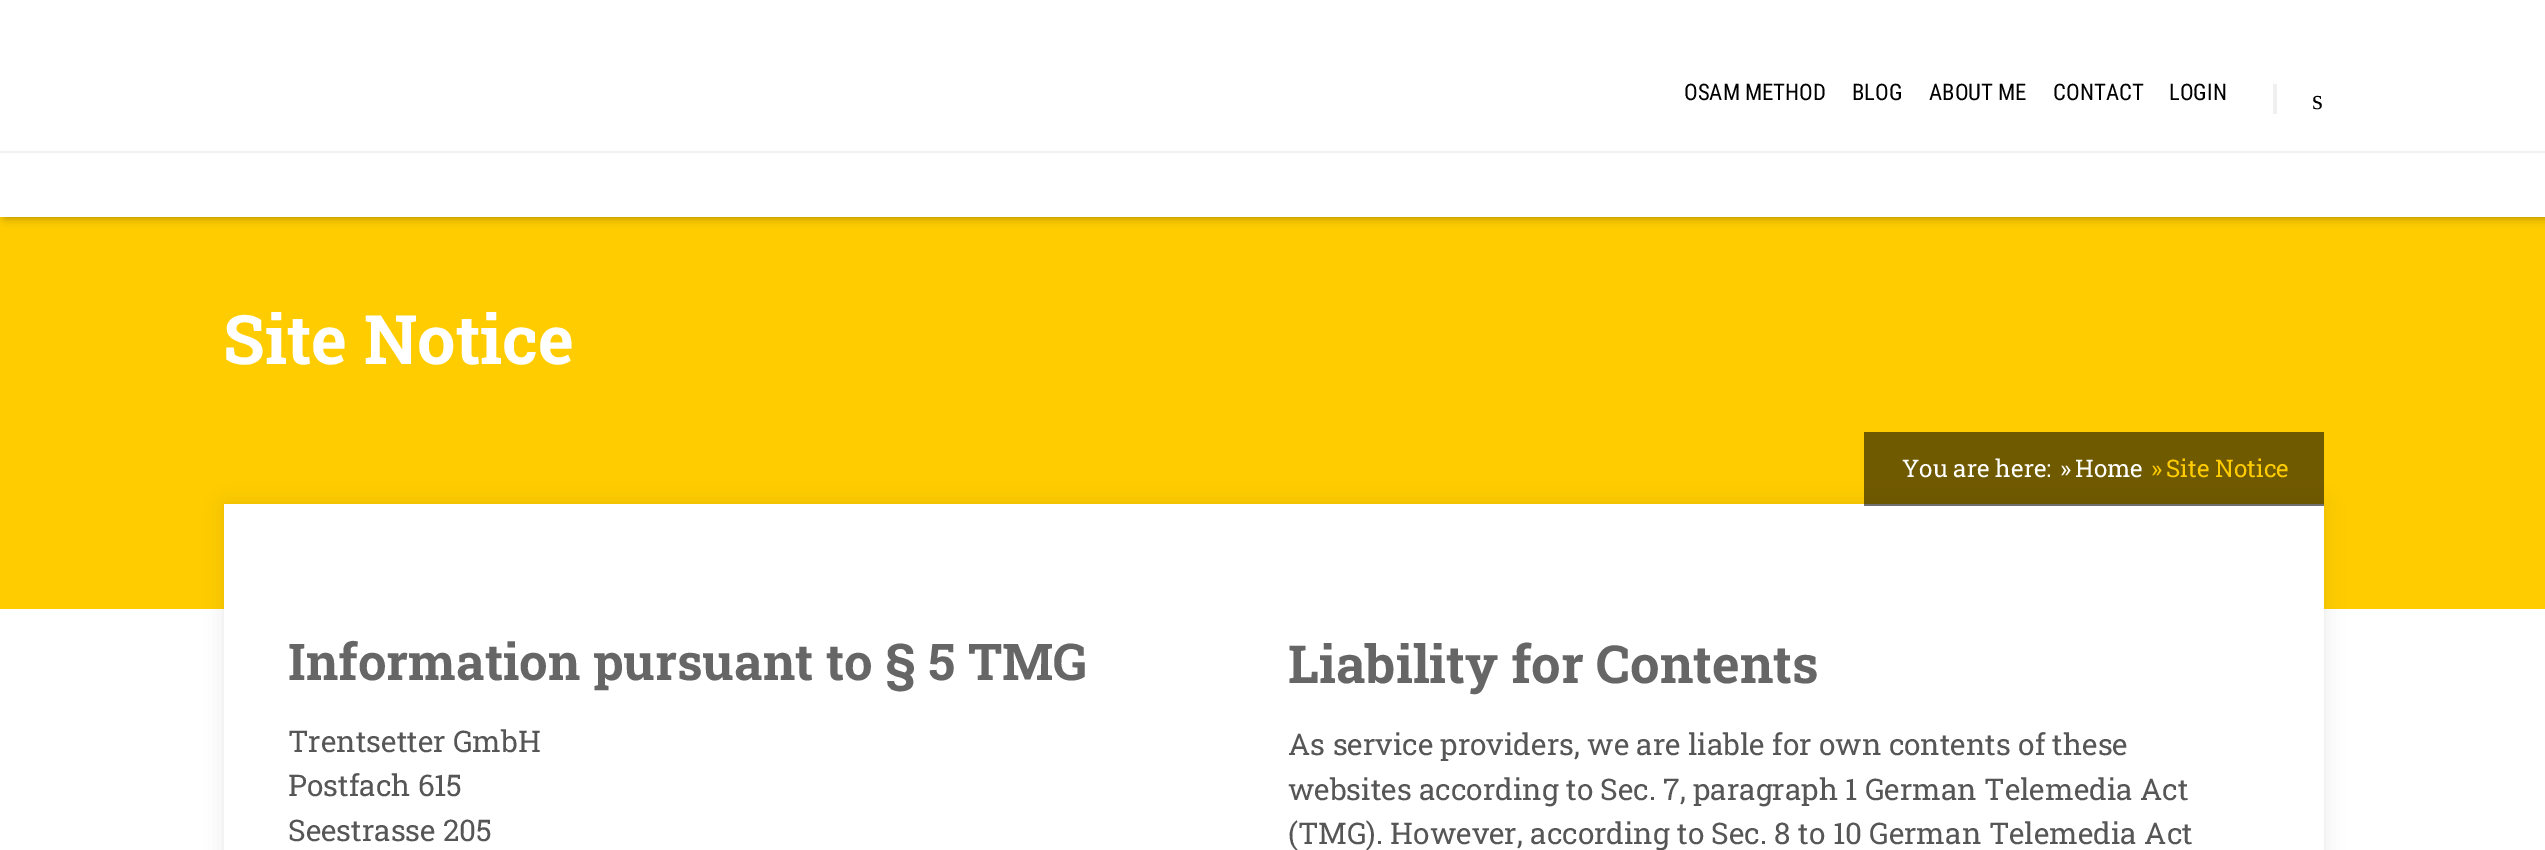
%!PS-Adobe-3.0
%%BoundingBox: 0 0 2545 850
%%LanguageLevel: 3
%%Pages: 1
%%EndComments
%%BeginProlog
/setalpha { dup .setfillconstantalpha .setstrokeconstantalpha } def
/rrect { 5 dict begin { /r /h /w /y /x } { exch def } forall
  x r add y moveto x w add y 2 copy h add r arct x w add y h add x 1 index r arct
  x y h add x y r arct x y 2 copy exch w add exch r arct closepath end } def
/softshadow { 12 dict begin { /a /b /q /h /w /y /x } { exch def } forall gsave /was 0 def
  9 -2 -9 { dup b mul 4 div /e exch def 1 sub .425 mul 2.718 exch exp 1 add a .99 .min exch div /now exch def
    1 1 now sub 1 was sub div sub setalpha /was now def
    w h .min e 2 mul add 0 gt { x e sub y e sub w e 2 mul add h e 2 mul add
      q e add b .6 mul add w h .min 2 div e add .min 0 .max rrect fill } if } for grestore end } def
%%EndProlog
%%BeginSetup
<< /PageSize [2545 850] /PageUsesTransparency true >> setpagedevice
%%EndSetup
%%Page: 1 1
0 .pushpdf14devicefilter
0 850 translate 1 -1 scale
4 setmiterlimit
1 setgray
0 0 2545 850 rectfill
1 0.8 0 setrgbcolor
0 217 2545 392 rectfill
0 setgray
5 0 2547 217 0 5 0.37 softshadow
1 setgray
0 0 2545 217 rectfill
0.945 setgray
0 151 2545 2 rectfill
0.941 setgray
2273 84 4 30 rectfill
0.196 setgray
224 504 2100 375 0 9.5 0.11 softshadow
1 setgray
224 504 2100 346 rectfill
0.56 setalpha
0 setgray
1864 432 460 74 rectfill
/RobotoCondensed-Regular [22.75 0 0 -22.75 0 0] selectfont
1 setalpha
1684 100 moveto (OSAM METHOD) show
1852 100 moveto (BLOG) show
1929 100 moveto (ABOUT ME) show
2053 100 moveto (CONTACT) show
2169 100 moveto (LOGIN) show
/LiberationSerif-Regular [28 0 0 -28 0 0] selectfont
2312 109 moveto (s) show
/RobotoSlab-Bold [68.25 0 0 -68.25 0 0] selectfont
1 setgray
223 364 moveto (Site Notice) show
/RobotoSlab-Regular [24.25 0 0 -24.25 0 0] selectfont
1902 477 moveto (You are here:) show
2060 477 moveto (») show
2075 477 moveto (Home) show
1 0.8 0 setrgbcolor
2151 477 moveto (») show
2166 477 moveto (Site Notice) show
/RobotoSlab-Bold [50.75 0 0 -50.75 0 0] selectfont
0.4 setgray
288 680 moveto (Information pursuant to § 5 TMG) show
/RobotoSlab-Regular [29.75 0 0 -29.75 0 0] selectfont
0.337 setgray
288 752 moveto (Trentsetter GmbH) show
288 796 moveto (Postfach 615) show
288 841 moveto (Seestrasse 205) show
/RobotoSlab-Bold [52.5 0 0 -52.5 0 0] selectfont
0.4 setgray
1288 683 moveto (Liability for Contents) show
/RobotoSlab-Regular [29.75 0 0 -29.75 0 0] selectfont
0.337 setgray
1288 755 moveto (As service providers, we are liable for own contents of these) show
1288 800 moveto (websites according to Sec. 7, paragraph 1 German Telemedia Act) show
1288 844 moveto (\(TMG\). However, according to Sec. 8 to 10 German Telemedia Act) show
.poppdf14devicefilter showpage
%%EOF
